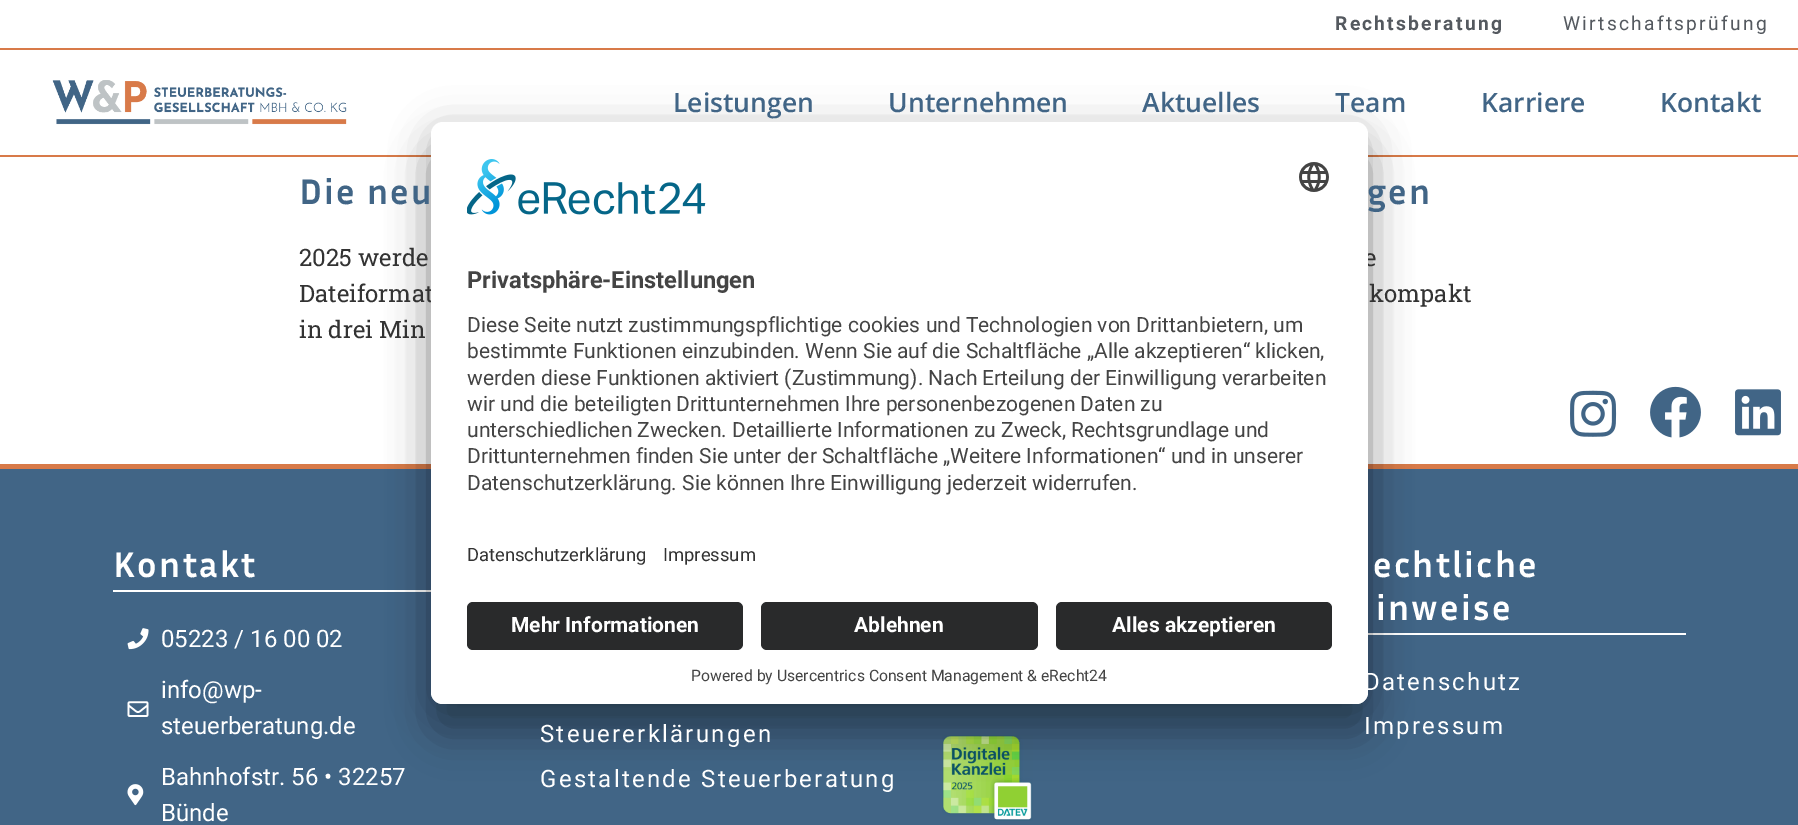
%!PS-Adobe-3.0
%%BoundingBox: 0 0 1798 825
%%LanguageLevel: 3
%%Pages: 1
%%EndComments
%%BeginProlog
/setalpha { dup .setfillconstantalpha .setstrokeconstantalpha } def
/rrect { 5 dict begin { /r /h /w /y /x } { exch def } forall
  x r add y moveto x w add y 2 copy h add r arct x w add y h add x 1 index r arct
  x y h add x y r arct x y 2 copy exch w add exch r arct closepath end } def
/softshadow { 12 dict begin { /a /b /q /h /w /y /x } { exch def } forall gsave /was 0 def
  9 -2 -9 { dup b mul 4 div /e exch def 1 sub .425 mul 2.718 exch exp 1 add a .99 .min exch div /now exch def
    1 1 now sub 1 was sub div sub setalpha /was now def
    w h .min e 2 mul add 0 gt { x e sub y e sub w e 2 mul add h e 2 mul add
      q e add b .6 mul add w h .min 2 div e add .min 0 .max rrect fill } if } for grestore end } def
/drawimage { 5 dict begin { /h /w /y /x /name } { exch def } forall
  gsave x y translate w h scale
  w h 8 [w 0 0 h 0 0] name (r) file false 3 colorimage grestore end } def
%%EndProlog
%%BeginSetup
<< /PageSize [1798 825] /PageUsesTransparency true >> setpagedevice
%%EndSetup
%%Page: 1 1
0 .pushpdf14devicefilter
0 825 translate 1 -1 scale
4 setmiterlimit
1 setgray
0 0 1798 825 rectfill
0.847 0.478 0.286 setrgbcolor
0 48 1798 2 rectfill
0 155 1798 2 rectfill
(images/1.raw) 52 80 295 45 drawimage
0.255 0.396 0.525 setrgbcolor
0 469 1798 356 rectfill
0.847 0.478 0.286 setrgbcolor
0 464 1798 5 rectfill
1 setgray
113 590 318 2 rectfill
1368 633 318 2 rectfill
(images/10.raw) 942 735 91 86 drawimage
0 setgray
431 152 937 582 12 21 0.3 softshadow
431 129 937 582 12 19.5 0.22 softshadow
(images/4.raw) 1570 390 47 47 drawimage
(images/5.raw) 1650 386 51 52 drawimage
(images/6.raw) 1735 389 46 47 drawimage
(images/7.raw) 127 628 22 22 drawimage
(images/8.raw) 127 701 22 16 drawimage
(images/9.raw) 127 784 17 22 drawimage
/Roboto-Bold [19.25 0 0 -19.25 0 0] selectfont
0.329 0.349 0.373 setrgbcolor
1335 30 moveto 2.25 0 (Rechtsberatung) ashow
/Roboto-Regular [19.25 0 0 -19.25 0 0] selectfont
1563 30 moveto 2.25 0 (Wirtschaftsprüfung) ashow
/OpenSans-SemiBold [26.5 0 0 -26.5 0 0] selectfont
0.255 0.396 0.525 setrgbcolor
673 112 moveto (Leistungen) show
888 112 moveto (Unternehmen) show
1142 112 moveto (Aktuelles) show
1335 112 moveto (Team) show
1481 112 moveto (Karriere) show
1660 112 moveto (Kontakt) show
/InriaSans-Bold [36 0 0 -36 0 0] selectfont
299 204 moveto 2.25 0 (Die neu) ashow
1367 204 moveto 2.25 0 (gen) ashow
/RobotoSlab-Regular [24 0 0 -24 0 0] selectfont
0.2 setgray
299 266 moveto (2025 werde) show
1364 266 moveto (e) show
299 302 moveto (Dateiformat) show
1369 302 moveto (kompakt) show
299 338 moveto (in drei Min) show
1 setgray
431 122 937 582 12 rrect fill
(images/2.raw) 467 159 239 56 drawimage
(images/3.raw) 1299 162 30 30 drawimage
/Roboto-Bold [23.6 0 0 -23.6 0 0] selectfont
0.267 setgray
467 288 moveto (Privatsphäre-Einstellungen) show
/Roboto-Regular [21 0 0 -21 0 0] selectfont
467 332 moveto (Diese Seite nutzt zustimmungspflichtige cookies und Technologien von Drittanbietern, um) show
467 358 moveto (bestimmte Funktionen einzubinden. Wenn Sie auf die Schaltfläche „Alle akzeptieren“ klicken,) show
467 385 moveto (werden diese Funktionen aktiviert \(Zustimmung\). Nach Erteilung der Einwilligung verarbeiten) show
467 411 moveto (wir und die beteiligten Drittunternehmen Ihre personenbezogenen Daten zu) show
467 437 moveto (unterschiedlichen Zwecken. Detaillierte Informationen zu Zweck, Rechtsgrundlage und) show
467 463 moveto (Drittunternehmen finden Sie unter der Schaltfläche „Weitere Informationen“ und in unserer) show
467 490 moveto (Datenschutzerklärung. Sie können Ihre Einwilligung jederzeit widerrufen.) show
/Roboto-Regular [18.4 0 0 -18.4 0 0] selectfont
0.2 setgray
467 561 moveto (Datenschutzerklärung) show
663 561 moveto (Impressum) show
1 setgray
newpath 431 590 moveto 1368 590 lineto 1368 692 lineto 1368 698.5 1362.5 704 1356 704 curveto 443 704 lineto 436.5 704 431 698.5 431 692 curveto closepath fill
0.161 0.165 0.169 setrgbcolor
467 602 276 48 6 rrect fill
/Roboto-Bold [21 0 0 -21 0 0] selectfont
1 setgray
511 632 moveto (Mehr Informationen) show
0.161 0.165 0.169 setrgbcolor
761 602 277 48 6 rrect fill
1 setgray
854 632 moveto (Ablehnen) show
0.161 0.165 0.169 setrgbcolor
1056 602 276 48 6 rrect fill
1 setgray
1112 632 moveto (Alles akzeptieren) show
/Roboto-Regular [15.75 0 0 -15.75 0 0] selectfont
0.267 setgray
691 681 moveto (Powered by Usercentrics Consent Management & eRecht24) show
/InriaSans-Bold [36 0 0 -36 0 0] selectfont
1 setgray
113 577 moveto 2.25 0 (Kontakt) ashow
/Roboto-Regular [24 0 0 -24 0 0] selectfont
161 647 moveto (05223 / 16 00 02) show
161 698 moveto (info@wp-) show
161 734 moveto (steuerberatung.de) show
161 785 moveto (Bahnhofstr. 56 • 32257) show
161 821 moveto (Bünde) show
/InriaSans-Bold [36 0 0 -36 0 0] selectfont
1373 577 moveto 2.25 0 (echtliche) ashow
1376 620 moveto 2.25 0 (inweise) ashow
/Roboto-Regular [24 0 0 -24 0 0] selectfont
1364 690 moveto 2.25 0 (Datenschutz) ashow
1364 734 moveto 2.25 0 (Impressum) ashow
540 742 moveto 2.25 0 (Steuererklärungen) ashow
540 787 moveto 2.25 0 (Gestaltende Steuerberatung) ashow
.poppdf14devicefilter showpage
%%EOF
